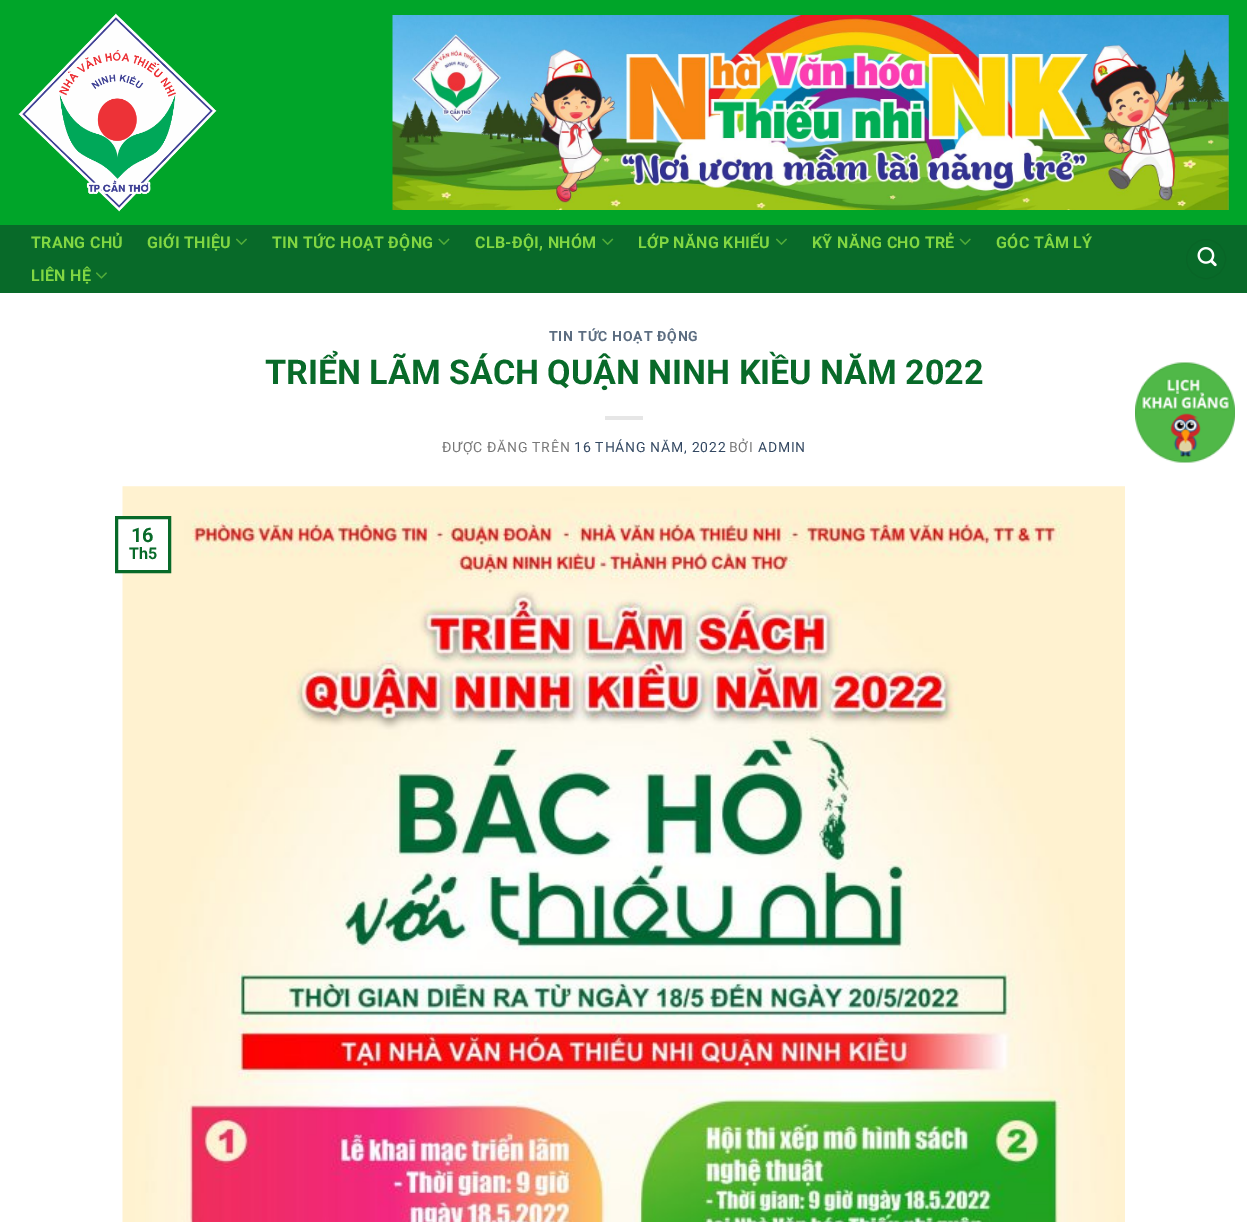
%!PS-Adobe-3.0
%%BoundingBox: 0 0 1247 1222
%%LanguageLevel: 3
%%Pages: 1
%%EndComments
%%BeginProlog
/drawimage { 5 dict begin { /h /w /y /x /name } { exch def } forall
  gsave x y translate w h scale
  w h 8 [w 0 0 h 0 0] name (r) file false 3 colorimage grestore end } def
%%EndProlog
%%BeginSetup
<< /PageSize [1247 1222] >> setpagedevice
%%EndSetup
%%Page: 1 1
0 1222 translate 1 -1 scale
4 setmiterlimit
1 setgray
0 0 1247 1222 rectfill
0 0.647 0.161 setrgbcolor
0 0 1247 225 rectfill
(images/1.raw) 18 13 199 199 drawimage
(images/2.raw) 392 15 837 195 drawimage
0.031 0.416 0.161 setrgbcolor
0 225 1247 68 rectfill
(images/3.raw) 236 238 11 7 drawimage
(images/4.raw) 438 238 12 7 drawimage
(images/5.raw) 602 238 12 7 drawimage
(images/3.raw) 776 238 11 7 drawimage
(images/6.raw) 959 238 12 7 drawimage
(images/7.raw) 96 272 11 7 drawimage
0.031 0.396 0.153 setrgbcolor
newpath 1206 259 19.5 0 360 arc closepath stroke
(images/8.raw) 1197 247 20 20 drawimage
0.902 setgray
605 416 38 4 rectfill
(images/9.raw) 122 486 1003 736 drawimage
1 setgray
122 519 46 51 rectfill
0.031 0.416 0.161 setrgbcolor
3 setlinewidth
116.5 517.5 53 54 rectstroke
(images/10.raw) 1135 362 100 101 drawimage
/Roboto-Bold [16 0 0 -16 0 0] selectfont
0.506 0.843 0.259 setrgbcolor
31 248 moveto 0.3 0 (TRANG CHỦ) ashow
147 248 moveto 0.3 0 (GIỚI THIỆU) ashow
272 248 moveto 0.3 0 (TIN TỨC HOẠT ĐỘNG) ashow
475 248 moveto 0.3 0 (CLB-ĐỘI, NHÓM) ashow
638 248 moveto 0.3 0 (LỚP NĂNG KHIẾU) ashow
812 248 moveto 0.3 0 (KỸ NĂNG CHO TRẺ) ashow
996 248 moveto 0.3 0 (GÓC TÂM LÝ) ashow
31 281 moveto 0.3 0 (LIÊN HỆ) ashow
/Roboto-Bold [14 0 0 -14 0 0] selectfont
0.361 0.427 0.506 setrgbcolor
549 341 moveto 0.75 0 (TIN TỨC HOẠT ĐỘNG) ashow
/Roboto-Bold [34 0 0 -34 0 0] selectfont
0.031 0.416 0.161 setrgbcolor
265 384 moveto (TRIỂN LÃM SÁCH QUẬN NINH KIỀU NĂM 2022) show
/Roboto-Regular [14 0 0 -14 0 0] selectfont
0.467 setgray
442 452 moveto 0.75 0 (ĐƯỢC ĐĂNG TRÊN) ashow
0.2 0.282 0.384 setrgbcolor
574 452 moveto 0.75 0 (16 THÁNG NĂM, 2022) ashow
0.467 setgray
729 452 moveto 0.75 0 (BỞI) ashow
0.2 0.282 0.384 setrgbcolor
758 452 moveto 0.75 0 (ADMIN) ashow
/Roboto-Bold [20 0 0 -20 0 0] selectfont
0.031 0.416 0.161 setrgbcolor
131 542 moveto (16) show
/Roboto-Bold [16 0 0 -16 0 0] selectfont
129 559 moveto (Th5) show
showpage
%%EOF
